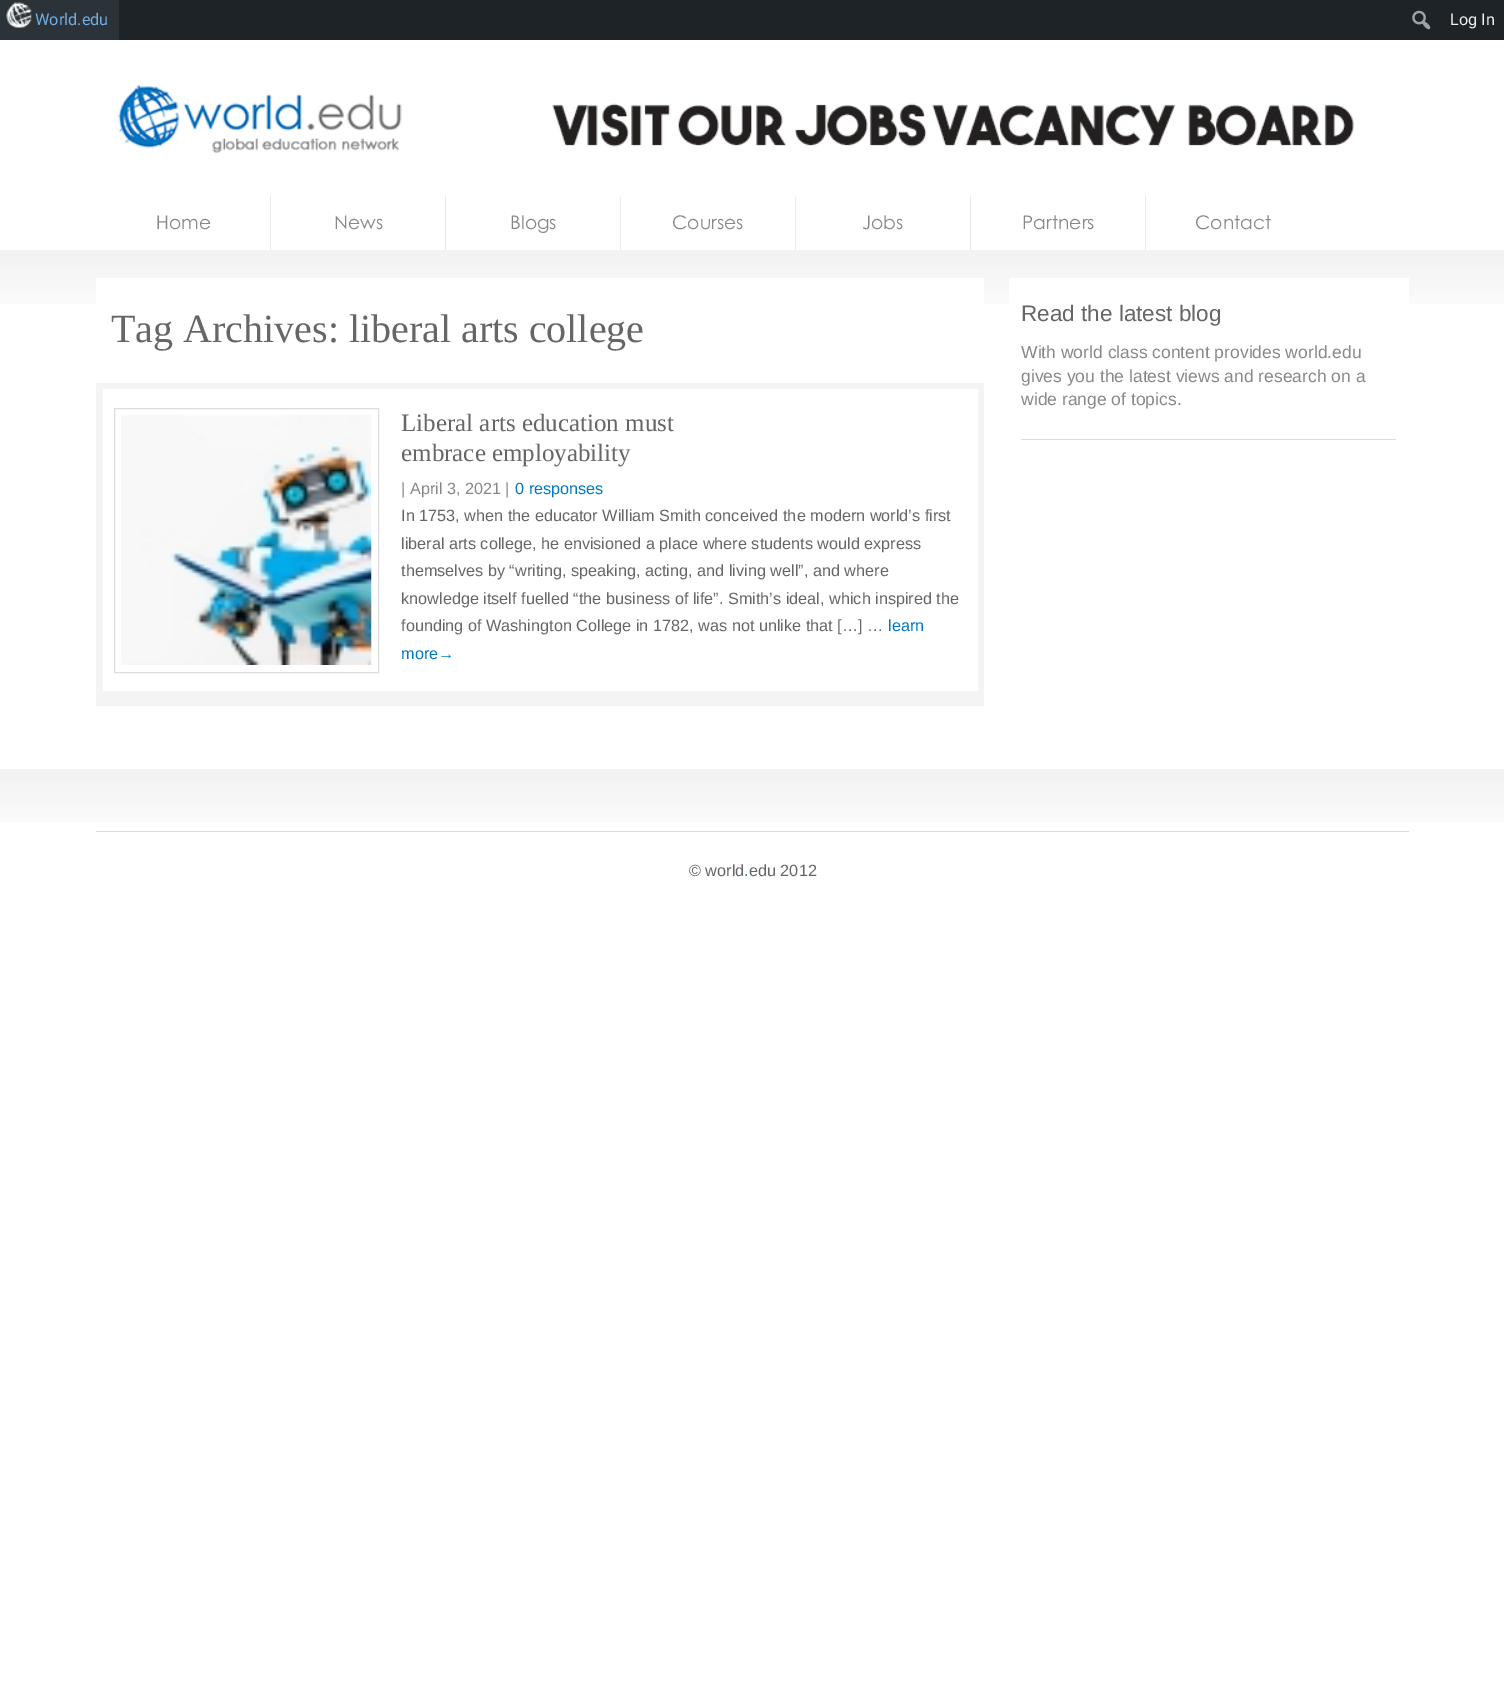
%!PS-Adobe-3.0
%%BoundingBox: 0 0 1504 1696
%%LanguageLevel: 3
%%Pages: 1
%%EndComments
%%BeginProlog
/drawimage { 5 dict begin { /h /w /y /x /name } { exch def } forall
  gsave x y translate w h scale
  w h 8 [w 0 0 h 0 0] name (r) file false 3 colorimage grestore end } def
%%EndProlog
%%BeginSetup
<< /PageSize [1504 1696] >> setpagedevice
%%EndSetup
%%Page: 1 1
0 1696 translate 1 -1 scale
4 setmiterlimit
1 setgray
0 0 1504 1696 rectfill
0.114 0.137 0.153 setrgbcolor
119 0 1385 40 rectfill
(images/1.raw) 1412 10 19 20 drawimage
0.173 0.2 0.22 setrgbcolor
0 0 119 40 rectfill
(images/2.raw) 6 2 26 26 drawimage
(images/3.raw) 117 84 285 69 drawimage
(images/4.raw) 552 103 802 44 drawimage
0.918 setgray
270 196 1 54 rectfill
445 196 1 54 rectfill
620 196 1 54 rectfill
795 196 1 54 rectfill
970 196 1 54 rectfill
1145 196 1 54 rectfill
(images/5.raw) 0 250 1504 54 drawimage
1 setgray
96 278 888 26 rectfill
0.957 setgray
96 383 888 323 rectfill
1 setgray
103 389 875 302 rectfill
0.863 setgray
114.5 408.5 264 264 rectstroke
(images/6.raw) 121 415 251 250 drawimage
1 setgray
1009 278 400 26 rectfill
0.863 setgray
1021 439 375 1 rectfill
(images/7.raw) 0 769 1504 53 drawimage
96 831 1313 1 rectfill
/Roboto-Regular [16.25 0 0 -16.25 0 0] selectfont
0.447 0.682 0.902 setrgbcolor
35 25 moveto (World.edu) show
0.941 0.941 0.945 setrgbcolor
1450 25 moveto (Log In) show
/CenturyGothic-Regular [18.75 0 0 -18.75 0 0] selectfont
0.533 setgray
156 229 moveto (Home) show
334 229 moveto (News) show
510 229 moveto (Blogs) show
672 229 moveto (Courses) show
862 229 moveto (Jobs) show
1022 229 moveto (Partners) show
1195 229 moveto (Contact) show
/LiberationSerif-Regular [40 0 0 -40 0 0] selectfont
0.4 setgray
111 342 moveto (Tag Archives: liberal arts college) show
/LiberationSerif-Regular [25 0 0 -25 0 0] selectfont
401 431 moveto (Liberal arts education must) show
401 461 moveto (embrace employability) show
/LiberationSans-Regular [16.25 0 0 -16.25 0 0] selectfont
0.533 setgray
401 494 moveto (| April 3, 2021 |) show
0 0.475 0.749 setrgbcolor
515 494 moveto (0 responses) show
0.4 setgray
401 521 moveto (In 1753, when the educator William Smith conceived the modern world’s first) show
401 549 moveto (liberal arts college, he envisioned a place where students would express) show
401 576 moveto (themselves by “writing, speaking, acting, and living well”, and where) show
401 604 moveto (knowledge itself fuelled “the business of life”. Smith’s ideal, which inspired the) show
401 631 moveto (founding of Washington College in 1782, was not unlike that […] …) show
0 0.475 0.749 setrgbcolor
888 631 moveto (learn) show
401 659 moveto (more→) show
/LiberationSans-Regular [22.5 0 0 -22.5 0 0] selectfont
0.4 setgray
1021 321 moveto (Read the latest blog) show
/LiberationSans-Regular [17.5 0 0 -17.5 0 0] selectfont
0.533 setgray
1021 358 moveto (With world class content provides world.edu) show
1021 382 moveto (gives you the latest views and research on a) show
1021 405 moveto (wide range of topics.) show
/LiberationSans-Regular [16.25 0 0 -16.25 0 0] selectfont
0.4 setgray
689 876 moveto (© world edu 2012) show
0 0.475 0.749 setrgbcolor
744 876 moveto (.) show
showpage
%%EOF
